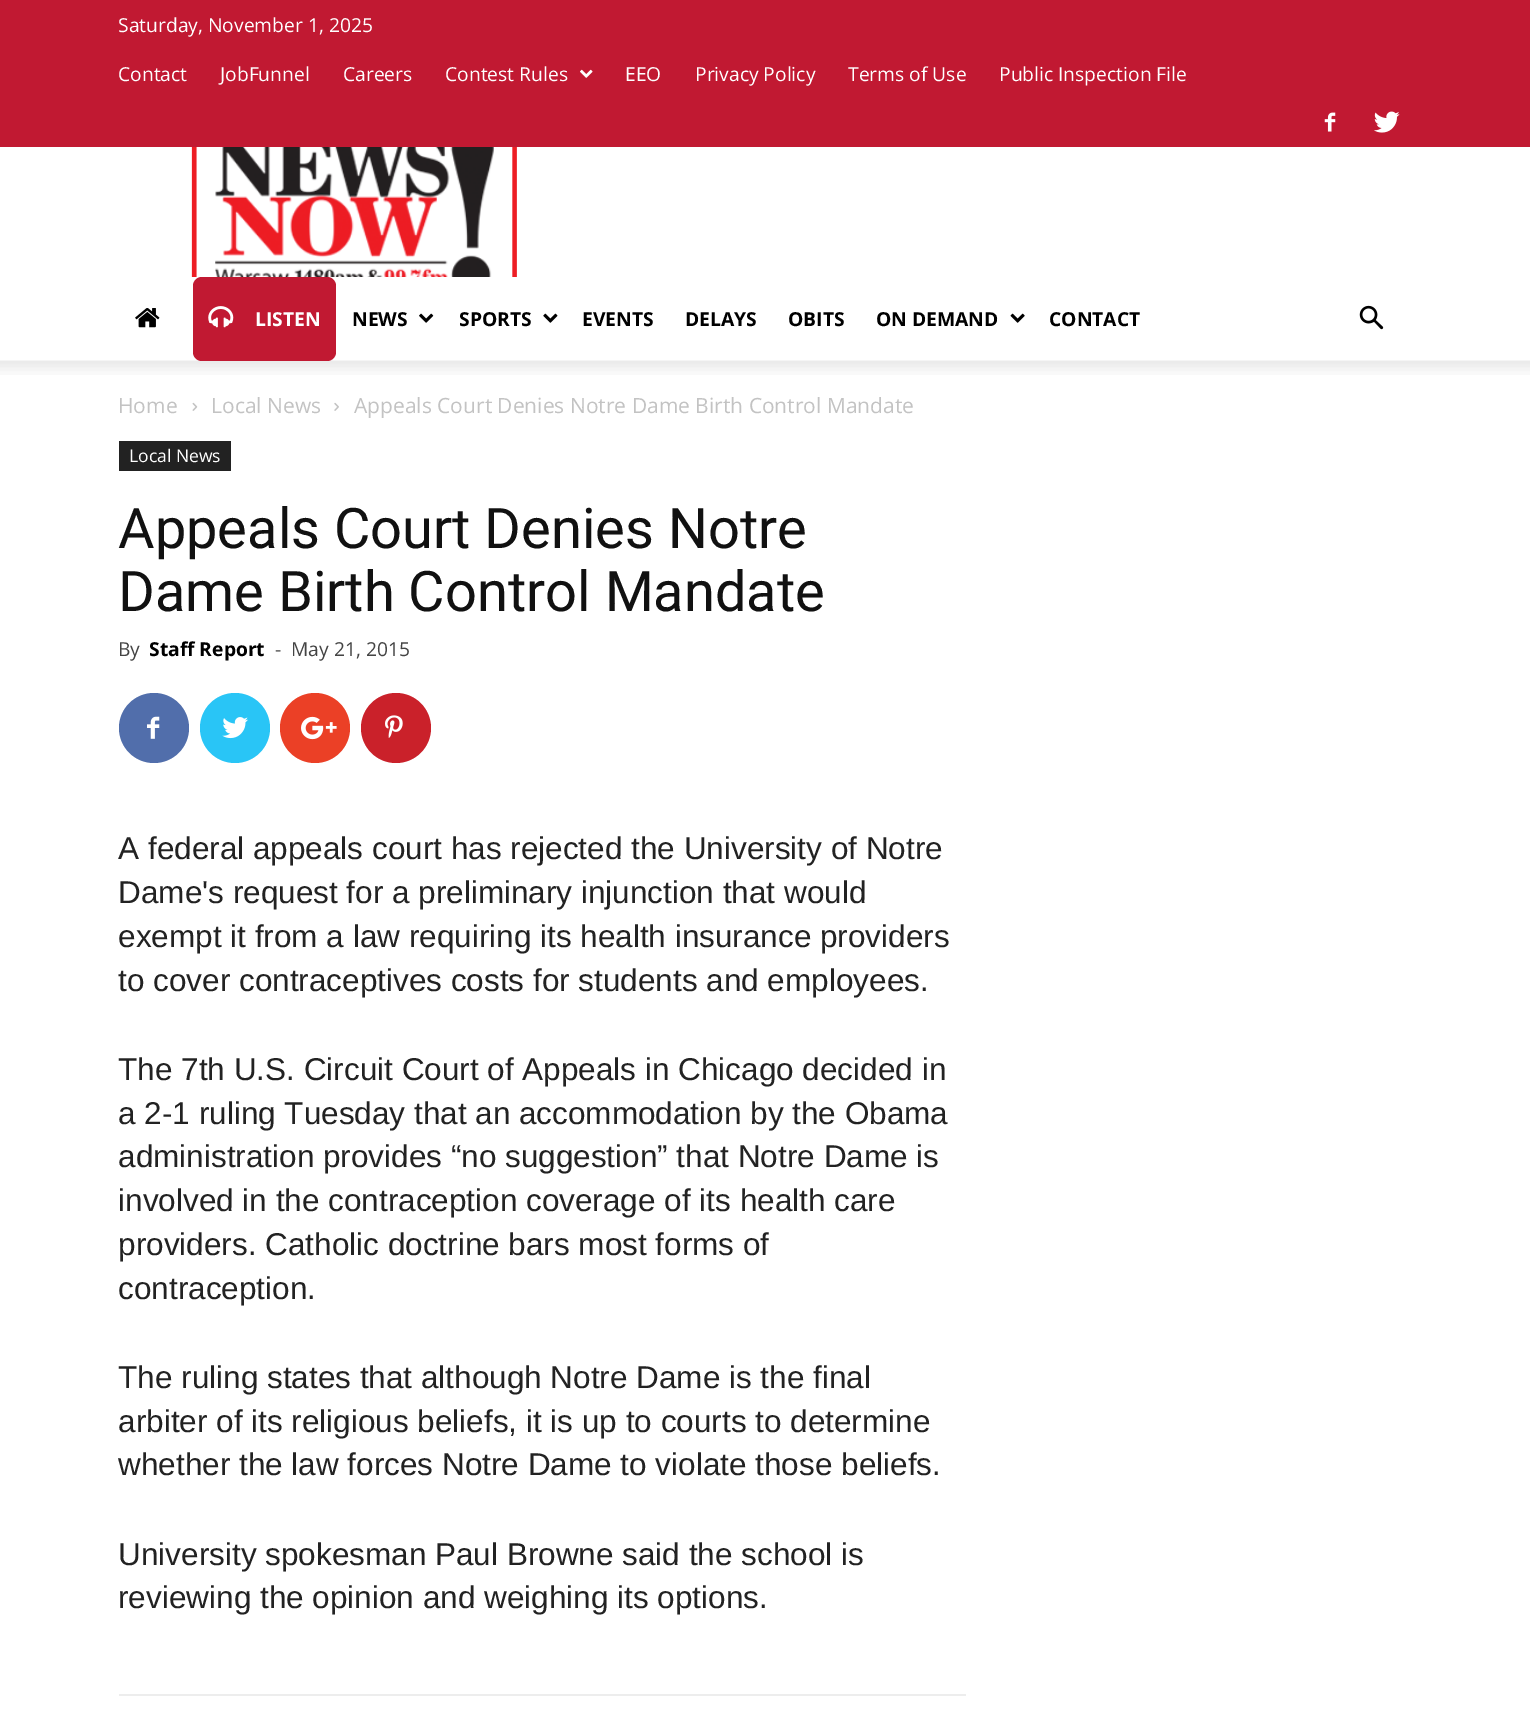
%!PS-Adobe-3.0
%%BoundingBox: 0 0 1530 1720
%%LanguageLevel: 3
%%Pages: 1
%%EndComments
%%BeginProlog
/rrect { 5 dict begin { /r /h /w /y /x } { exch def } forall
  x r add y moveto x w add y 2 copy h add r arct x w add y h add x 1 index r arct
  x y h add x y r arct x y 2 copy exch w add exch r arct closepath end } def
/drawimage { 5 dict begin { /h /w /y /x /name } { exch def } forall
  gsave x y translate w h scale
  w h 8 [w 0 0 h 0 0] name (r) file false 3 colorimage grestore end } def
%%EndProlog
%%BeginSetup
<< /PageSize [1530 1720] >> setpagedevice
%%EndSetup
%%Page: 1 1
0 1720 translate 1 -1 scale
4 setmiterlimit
1 setgray
0 0 1530 1720 rectfill
0.757 0.098 0.196 setrgbcolor
0 0 1530 147 rectfill
(images/1.raw) 580 69 13 9 drawimage
(images/2.raw) 1324 112 12 20 drawimage
(images/3.raw) 1374 111 26 22 drawimage
(images/4.raw) 191 147 326 130 drawimage
(images/5.raw) 135 308 25 20 drawimage
(images/11.raw) 0 360 1530 15 drawimage
193 277 143 84 9 rrect fill
(images/6.raw) 208 306 26 22 drawimage
(images/7.raw) 419 313 15 10 drawimage
(images/8.raw) 543 313 15 10 drawimage
(images/9.raw) 1010 313 15 10 drawimage
(images/10.raw) 1359 305 25 25 drawimage
(images/12.raw) 192 402 6 9 drawimage
(images/13.raw) 334 402 5 9 drawimage
0.133 setgray
119 441 112 30 rectfill
0.318 0.431 0.671 setrgbcolor
newpath 154 728 35 0 360 arc closepath fill
(images/14.raw) 147 716 13 23 drawimage
0.161 0.773 0.965 setrgbcolor
newpath 235 728 35 0 360 arc closepath fill
(images/15.raw) 222 717 26 22 drawimage
0.922 0.251 0.149 setrgbcolor
newpath 315 728 35 0 360 arc closepath fill
(images/16.raw) 301 716 36 24 drawimage
0.792 0.129 0.165 setrgbcolor
newpath 396 728 35 0 360 arc closepath fill
(images/17.raw) 385 715 18 23 drawimage
0.929 setgray
119 1694 847 2 rectfill
/OpenSans-Regular [19.25 0 0 -19.25 0 0] selectfont
1 setgray
118 32 moveto (Saturday, November 1, 2025) show
118 81 moveto (Contact) show
220 81 moveto (JobFunnel) show
343 81 moveto (Careers) show
445 81 moveto (Contest Rules) show
625 81 moveto (EEO) show
695 81 moveto (Privacy Policy) show
848 81 moveto (Terms of Use) show
999 81 moveto (Public Inspection File) show
/OpenSans-Bold [19.25 0 0 -19.25 0 0] selectfont
255 326 moveto (LISTEN) show
0 setgray
352 326 moveto (NEWS) show
459 326 moveto (SPORTS) show
582 326 moveto (EVENTS) show
685 326 moveto (DELAYS) show
788 326 moveto (OBITS) show
876 326 moveto (ON DEMAND) show
1049 326 moveto (CONTACT) show
/OpenSans-Regular [21 0 0 -21 0 0] selectfont
0.765 setgray
118 413 moveto (Home) show
211 413 moveto (Local News) show
354 413 moveto (Appeals Court Denies Notre Dame Birth Control Mandate) show
/OpenSans-Regular [17.5 0 0 -17.5 0 0] selectfont
1 setgray
129 462 moveto (Local News) show
/Roboto-Regular [56 0 0 -56 0 0] selectfont
0.067 setgray
118 548 moveto (Appeals Court Denies Notre) show
118 611 moveto (Dame Birth Control Mandate) show
/OpenSans-Regular [19.25 0 0 -19.25 0 0] selectfont
0.267 setgray
118 656 moveto (By) show
/OpenSans-Bold [19.25 0 0 -19.25 0 0] selectfont
0 setgray
149 656 moveto (Staff Report) show
/OpenSans-Regular [19.25 0 0 -19.25 0 0] selectfont
0.267 setgray
275 656 moveto (-) show
291 656 moveto (May 21, 2015) show
/LiberationSans-Regular [31.5 0 0 -31.5 0 0] selectfont
0.133 setgray
118 859 moveto (A federal appeals court has rejected the University of Notre) show
118 903 moveto (Dame's request for a preliminary injunction that would) show
118 947 moveto (exempt it from a law requiring its health insurance providers) show
118 991 moveto (to cover contraceptives costs for students and employees.) show
118 1080 moveto (The 7th U.S. Circuit Court of Appeals in Chicago decided in) show
118 1124 moveto (a 2-1 ruling Tuesday that an accommodation by the Obama) show
118 1167 moveto (administration provides “no suggestion” that Notre Dame is) show
118 1211 moveto (involved in the contraception coverage of its health care) show
118 1255 moveto (providers. Catholic doctrine bars most forms of) show
118 1299 moveto (contraception.) show
118 1388 moveto (The ruling states that although Notre Dame is the final) show
118 1432 moveto (arbiter of its religious beliefs, it is up to courts to determine) show
118 1475 moveto (whether the law forces Notre Dame to violate those beliefs.) show
118 1565 moveto (University spokesman Paul Browne said the school is) show
118 1608 moveto (reviewing the opinion and weighing its options.) show
showpage
%%EOF
